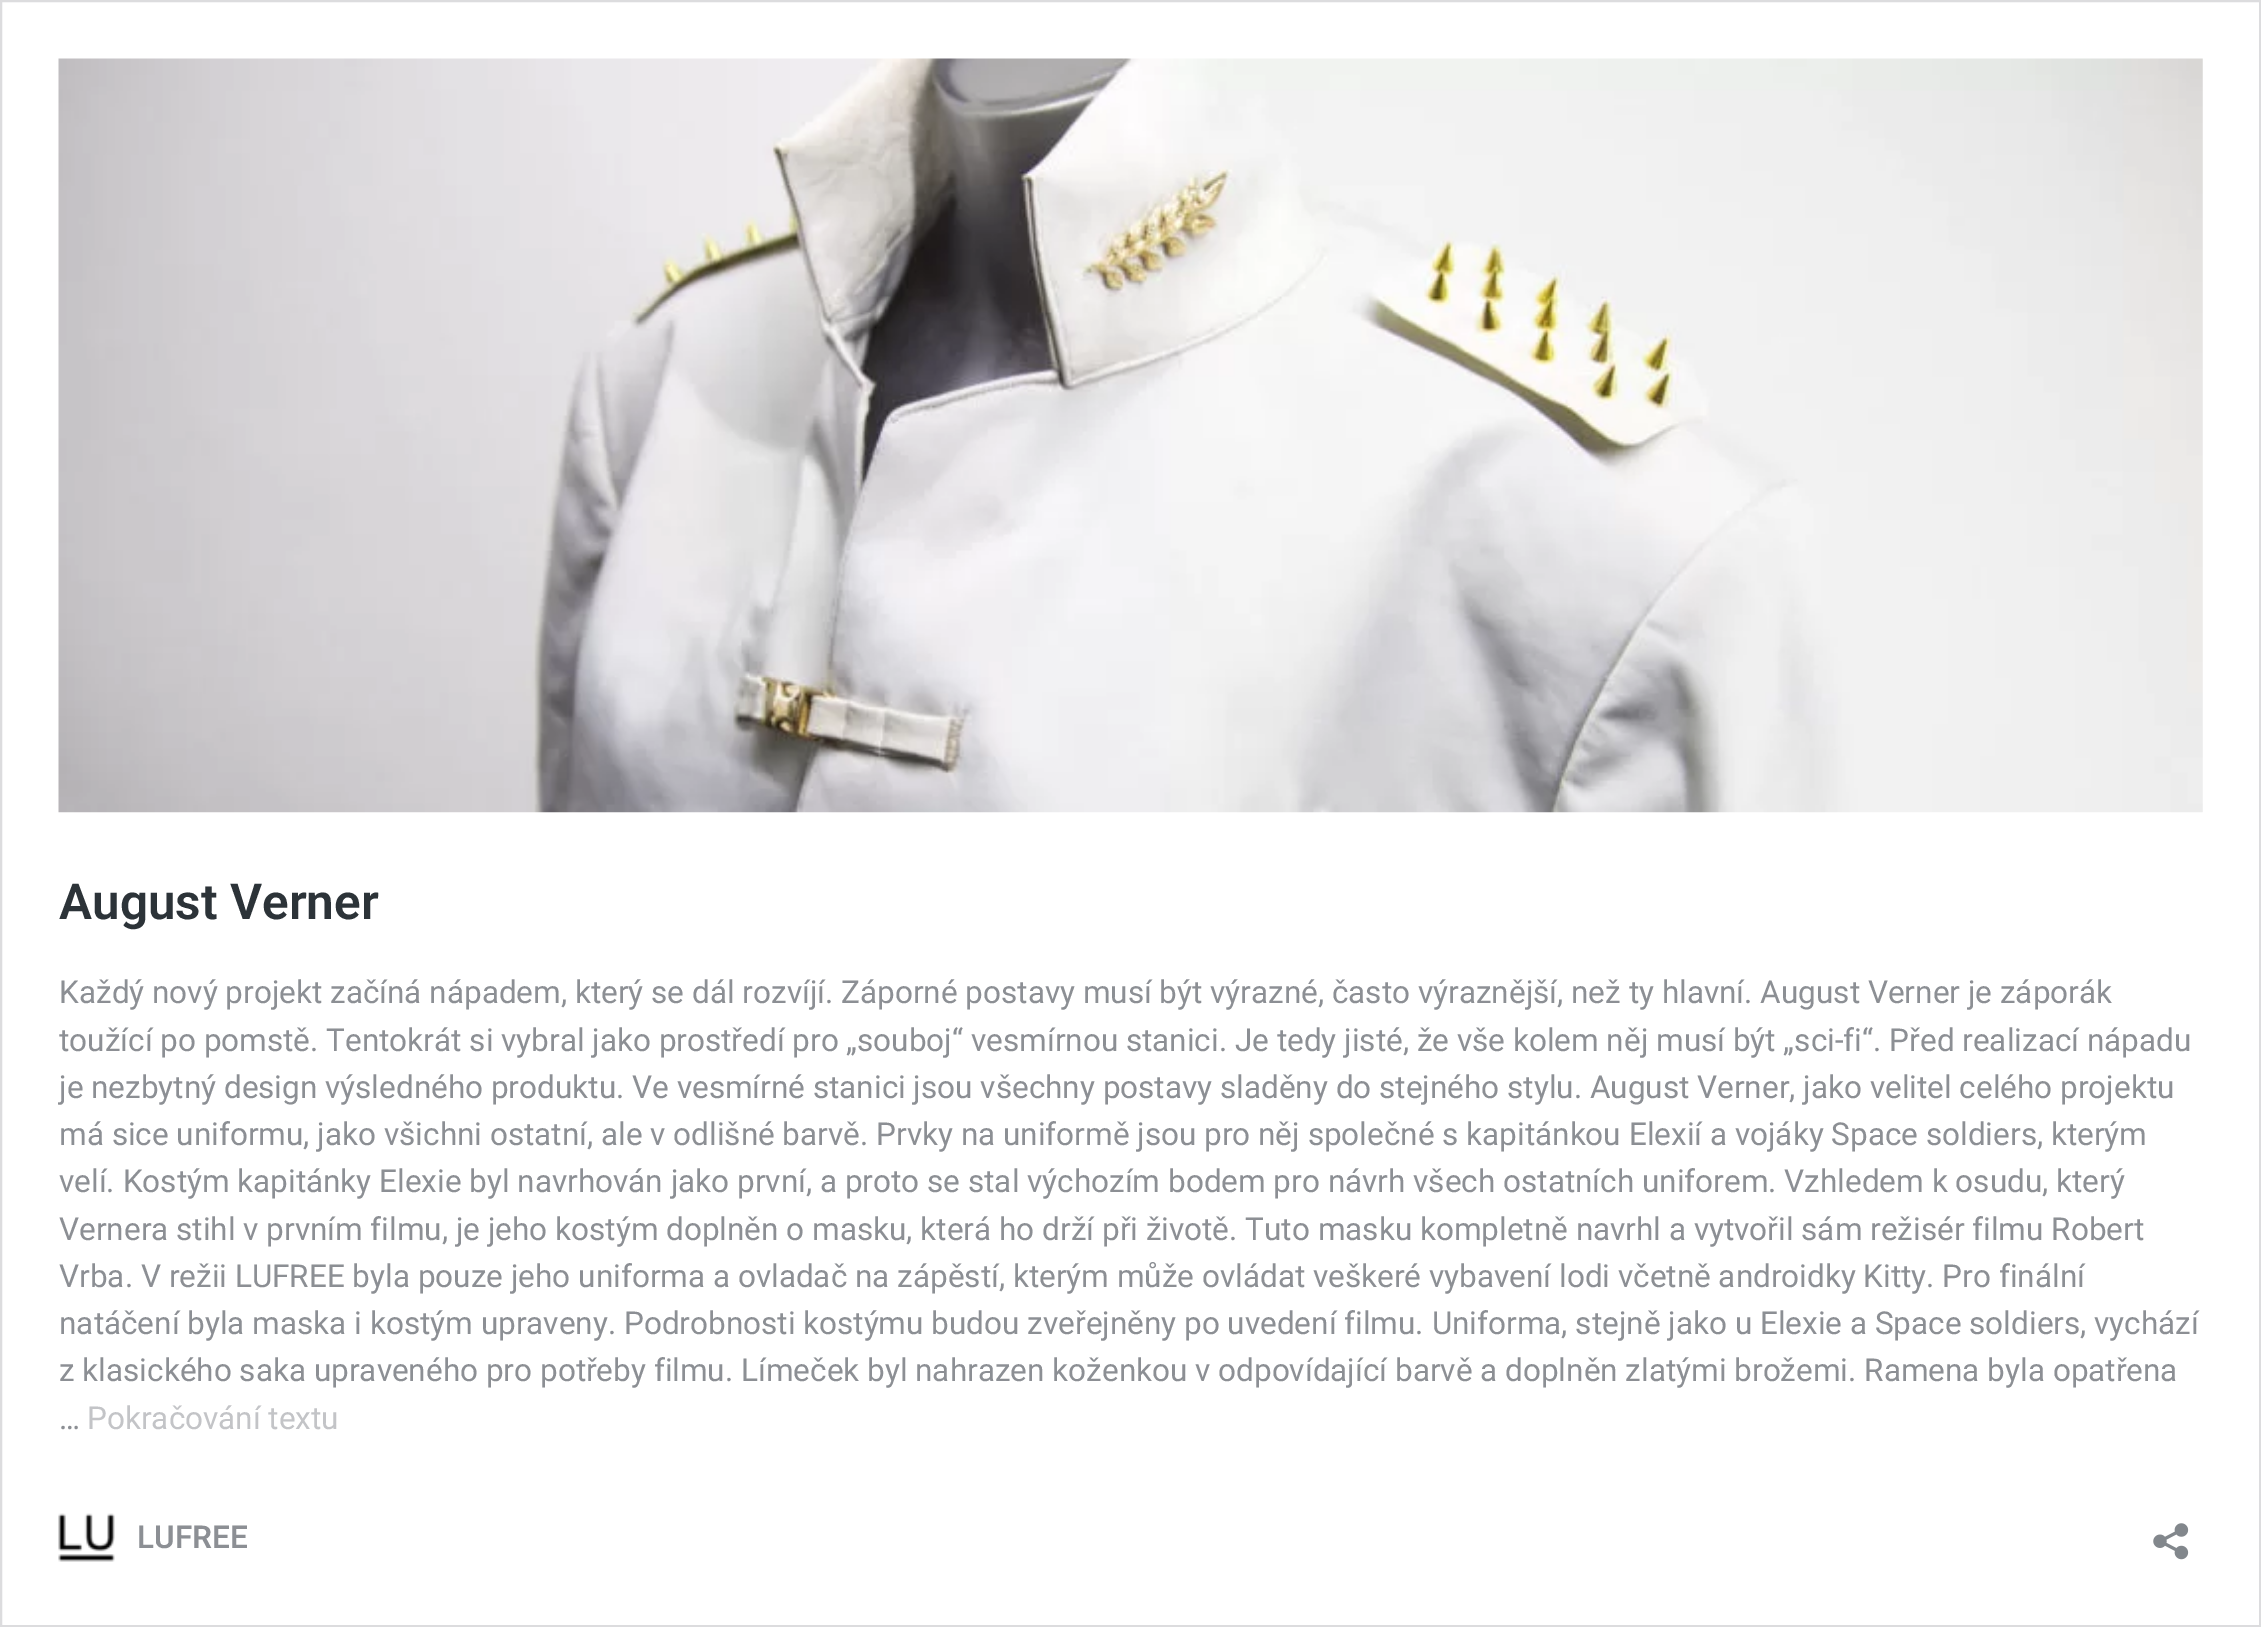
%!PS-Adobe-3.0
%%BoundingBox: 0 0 2261 1627
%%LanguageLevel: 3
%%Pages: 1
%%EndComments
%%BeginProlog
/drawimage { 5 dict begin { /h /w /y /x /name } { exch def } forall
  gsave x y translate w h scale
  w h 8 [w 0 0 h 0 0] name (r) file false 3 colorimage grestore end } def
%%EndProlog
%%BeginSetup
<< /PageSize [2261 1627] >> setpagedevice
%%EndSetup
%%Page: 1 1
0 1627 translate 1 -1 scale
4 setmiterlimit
1 setgray
0 0 2261 1627 rectfill
0.863 0.863 0.871 setrgbcolor
2 setlinewidth
1 1 2259 1625 rectstroke
(images/1.raw) 58 58 2145 755 drawimage
(images/2.raw) 58 1513 57 49 drawimage
(images/3.raw) 2153 1523 36 37 drawimage
/Roboto-SemiBold [49.5 0 0 -49.5 0 0] selectfont
0.173 0.2 0.22 setrgbcolor
59 919 moveto (August Verner) show
/Roboto-Regular [31.5 0 0 -31.5 0 0] selectfont
0.549 0.561 0.58 setrgbcolor
59 1003 moveto (Každý nový projekt začíná nápadem, který se dál rozvíjí. Záporné postavy musí být výrazné, často výraznější, než ty hlavní. August Verner je záporák) show
59 1051 moveto (toužící po pomstě. Tentokrát si vybral jako prostředí pro „souboj“ vesmírnou stanici. Je tedy jisté, že vše kolem něj musí být „sci-fi“. Před realizací nápadu) show
59 1098 moveto (je nezbytný design výsledného produktu. Ve vesmírné stanici jsou všechny postavy sladěny do stejného stylu. August Verner, jako velitel celého projektu) show
59 1145 moveto (má sice uniformu, jako všichni ostatní, ale v odlišné barvě. Prvky na uniformě jsou pro něj společné s kapitánkou Elexií a vojáky Space soldiers, kterým) show
59 1192 moveto (velí. Kostým kapitánky Elexie byl navrhován jako první, a proto se stal výchozím bodem pro návrh všech ostatních uniforem. Vzhledem k osudu, který) show
59 1240 moveto (Vernera stihl v prvním filmu, je jeho kostým doplněn o masku, která ho drží při životě. Tuto masku kompletně navrhl a vytvořil sám režisér filmu Robert) show
59 1287 moveto (Vrba. V režii LUFREE byla pouze jeho uniforma a ovladač na zápěstí, kterým může ovládat veškeré vybavení lodi včetně androidky Kitty. Pro finální) show
59 1334 moveto (natáčení byla maska i kostým upraveny. Podrobnosti kostýmu budou zveřejněny po uvedení filmu. Uniforma, stejně jako u Elexie a Space soldiers, vychází) show
59 1381 moveto (z klasického saka upraveného pro potřeby filmu. Límeček byl nahrazen koženkou v odpovídající barvě a doplněn zlatými brožemi. Ramena byla opatřena) show
59 1429 moveto (…) show
0.765 0.769 0.78 setrgbcolor
87 1429 moveto (Pokračování textu) show
/Roboto-SemiBold [31.5 0 0 -31.5 0 0] selectfont
0.549 0.561 0.58 setrgbcolor
137 1548 moveto (LUFREE) show
showpage
%%EOF
